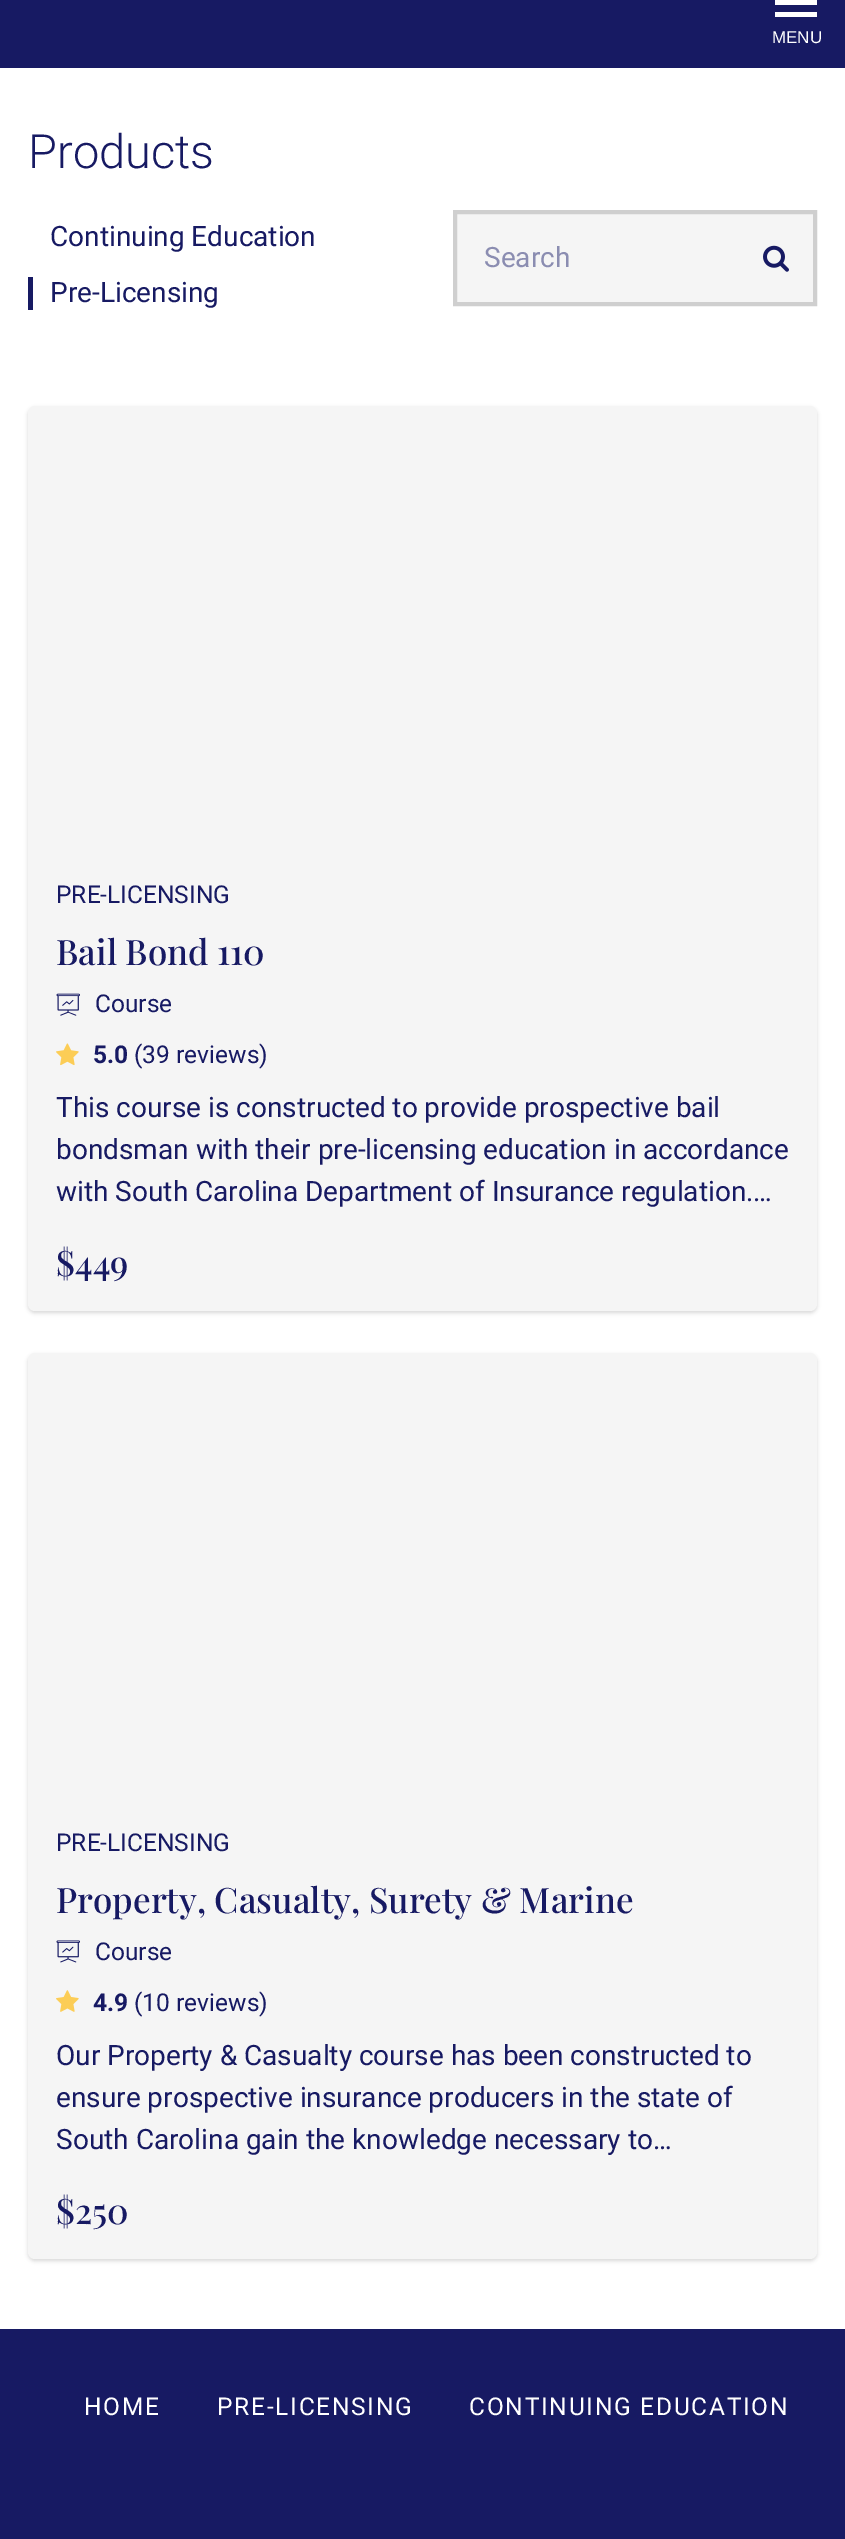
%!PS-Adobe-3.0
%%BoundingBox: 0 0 845 2539
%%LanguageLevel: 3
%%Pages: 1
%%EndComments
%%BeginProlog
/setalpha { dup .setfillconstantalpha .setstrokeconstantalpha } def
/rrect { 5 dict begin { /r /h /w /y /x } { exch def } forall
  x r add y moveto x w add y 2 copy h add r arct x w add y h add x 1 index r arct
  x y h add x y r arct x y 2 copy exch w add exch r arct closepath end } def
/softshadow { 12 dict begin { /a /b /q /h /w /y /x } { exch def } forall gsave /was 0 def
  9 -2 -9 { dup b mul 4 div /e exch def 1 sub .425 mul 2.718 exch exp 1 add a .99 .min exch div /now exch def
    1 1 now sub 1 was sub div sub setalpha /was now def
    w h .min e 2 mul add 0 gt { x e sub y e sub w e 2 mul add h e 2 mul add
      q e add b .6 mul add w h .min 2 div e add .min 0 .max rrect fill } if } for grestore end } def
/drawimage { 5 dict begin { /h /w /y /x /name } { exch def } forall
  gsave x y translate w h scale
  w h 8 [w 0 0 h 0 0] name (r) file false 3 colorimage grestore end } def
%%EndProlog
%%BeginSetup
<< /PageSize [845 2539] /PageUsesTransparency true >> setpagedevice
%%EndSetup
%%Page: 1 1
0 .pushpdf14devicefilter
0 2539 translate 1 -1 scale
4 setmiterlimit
1 setgray
0 0 845 2539 rectfill
0.09 0.102 0.388 setrgbcolor
0 0 845 68 rectfill
1 setgray
775 0 42 5 rectfill
775 12 42 5 rectfill
0.09 0.102 0.388 setrgbcolor
28 277 5 33 rectfill
0.961 setgray
newpath 455 212 moveto 815 212 lineto 815 304 lineto 455 304 lineto closepath gsave fill grestore
0.812 setgray
4 setlinewidth
stroke
(images/1.raw) 763 245 26 27 drawimage
0 setgray
28 408 789 905 7 2 0.15 softshadow
0.961 setgray
28 406 789 905 7 rrect fill
(images/2.raw) 56 993 24 23 drawimage
(images/3.raw) 56 1043 23 23 drawimage
0 setgray
28 1355 789 906 7 2 0.15 softshadow
0.961 setgray
28 1353 789 906 7 rrect fill
(images/4.raw) 56 1940 24 23 drawimage
(images/5.raw) 56 1990 23 22 drawimage
0.09 0.102 0.388 setrgbcolor
0 2329 845 210 rectfill
/LiberationSans-Regular [17 0 0 -17 0 0] selectfont
1 setgray
772 43 moveto (MENU) show
/Roboto-Light [47 0 0 -47 0 0] selectfont
0.09 0.102 0.388 setrgbcolor
28 168 moveto (Products) show
/Roboto-Regular [28 0 0 -28 0 0] selectfont
50 246 moveto (Continuing Education) show
50 302 moveto (Pre-Licensing) show
0.545 0.553 0.694 setrgbcolor
484 267 moveto (Search) show
/Roboto-Regular [24.5 0 0 -24.5 0 0] selectfont
0.09 0.102 0.388 setrgbcolor
56 903 moveto (PRE-LICENSING) show
/PlayfairDisplay-Medium [35 0 0 -35 0 0] selectfont
56 965 moveto (Bail Bond 110) show
/Roboto-Regular [24.5 0 0 -24.5 0 0] selectfont
95 1012 moveto (Course) show
/Roboto-Bold [24.5 0 0 -24.5 0 0] selectfont
93 1063 moveto (5.0) show
/Roboto-Regular [24.5 0 0 -24.5 0 0] selectfont
134 1063 moveto (\(39 reviews\)) show
/Roboto-Regular [28 0 0 -28 0 0] selectfont
56 1117 moveto (This course is constructed to provide prospective bail) show
56 1159 moveto (bondsman with their pre-licensing education in accordance) show
56 1201 moveto (with South Carolina Department of Insurance regulation.…) show
/PlayfairDisplay-Medium [35 0 0 -35 0 0] selectfont
56 1276 moveto ($449) show
/Roboto-Regular [24.5 0 0 -24.5 0 0] selectfont
56 1851 moveto (PRE-LICENSING) show
/PlayfairDisplay-Medium [35 0 0 -35 0 0] selectfont
56 1913 moveto (Property, Casualty, Surety & Marine) show
/Roboto-Regular [24.5 0 0 -24.5 0 0] selectfont
95 1960 moveto (Course) show
/Roboto-Bold [24.5 0 0 -24.5 0 0] selectfont
93 2011 moveto (4.9) show
/Roboto-Regular [24.5 0 0 -24.5 0 0] selectfont
134 2011 moveto (\(10 reviews\)) show
/Roboto-Regular [28 0 0 -28 0 0] selectfont
56 2065 moveto (Our Property & Casualty course has been constructed to) show
56 2107 moveto (ensure prospective insurance producers in the state of) show
56 2149 moveto (South Carolina gain the knowledge necessary to…) show
/PlayfairDisplay-Medium [35 0 0 -35 0 0] selectfont
56 2224 moveto ($250) show
/Roboto-Regular [24.5 0 0 -24.5 0 0] selectfont
1 setgray
84 2415 moveto 1.75 0 (HOME) ashow
217 2415 moveto 1.75 0 (PRE-LICENSING) ashow
469 2415 moveto 1.75 0 (CONTINUING EDUCATION) ashow
.poppdf14devicefilter showpage
%%EOF
